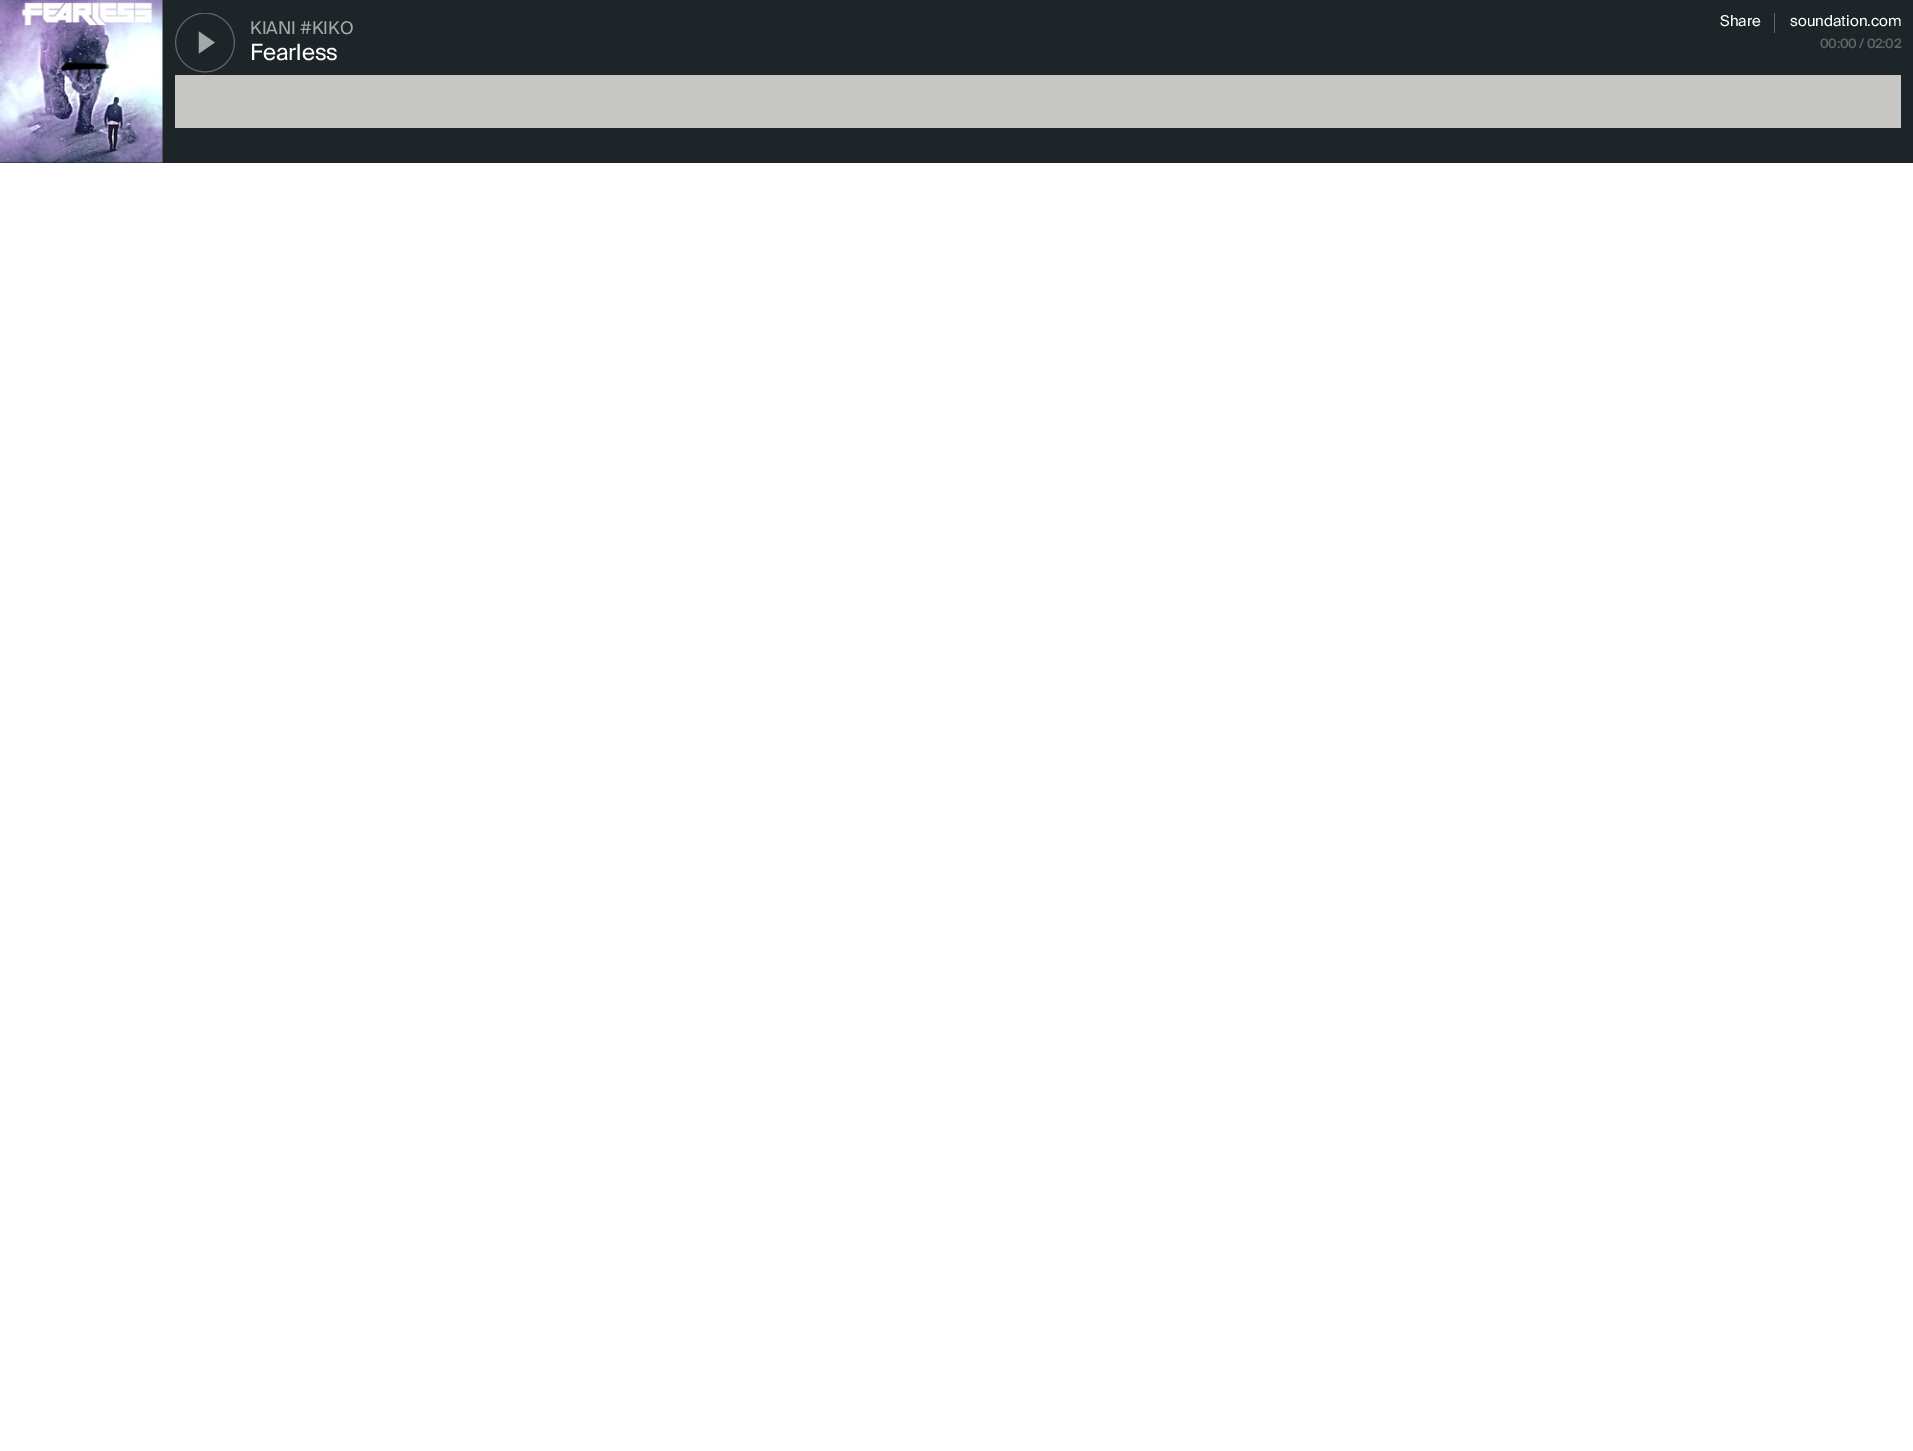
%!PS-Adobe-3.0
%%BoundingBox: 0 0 1913 1451
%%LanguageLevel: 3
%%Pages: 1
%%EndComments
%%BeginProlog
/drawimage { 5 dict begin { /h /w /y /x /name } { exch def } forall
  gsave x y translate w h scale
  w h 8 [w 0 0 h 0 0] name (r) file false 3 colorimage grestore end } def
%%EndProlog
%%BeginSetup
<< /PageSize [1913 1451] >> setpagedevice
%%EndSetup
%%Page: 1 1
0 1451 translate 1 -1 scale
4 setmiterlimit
1 setgray
0 0 1913 1451 rectfill
0.118 0.145 0.157 setrgbcolor
0 0 1913 163 rectfill
(images/1.raw) 0 0 163 163 drawimage
(images/2.raw) 175 13 60 60 drawimage
0.384 0.4 0.412 setrgbcolor
1774 13 1 20 rectfill
0.776 0.776 0.773 setrgbcolor
175 75 1726 53 rectfill
/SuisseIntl-Regular [17.5 0 0 -17.5 0 0] selectfont
0.647 0.659 0.663 setrgbcolor
250 34 moveto (KIANI #KIKO) show
/SuisseIntl-Regular [15 0 0 -15 0 0] selectfont
1 setgray
1720 26 moveto (Share) show
1790 26 moveto (soundation.com) show
/SuisseIntl-Regular [22.5 0 0 -22.5 0 0] selectfont
250 60 moveto (Fearless) show
/SuisseIntl-Bold [12.5 0 0 -12.5 0 0] selectfont
0.384 0.4 0.412 setrgbcolor
1820 48 moveto (00:00 / 02:02) show
showpage
%%EOF
